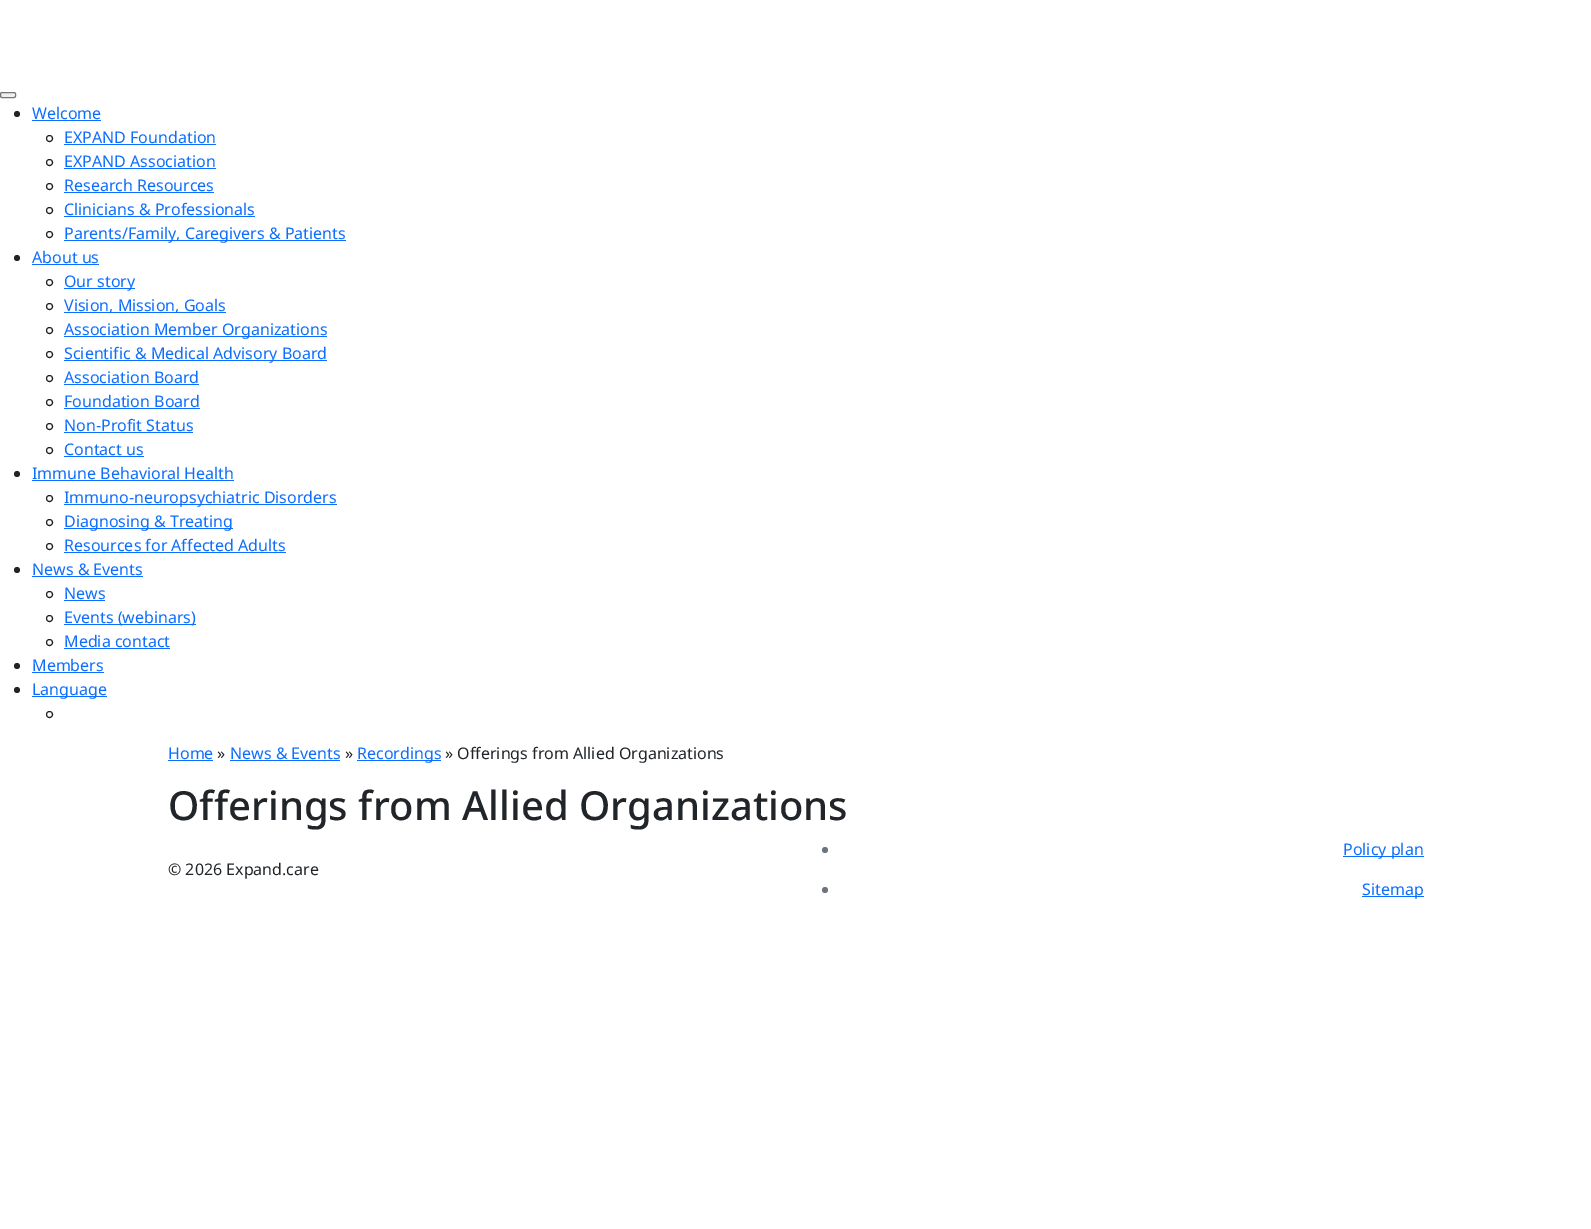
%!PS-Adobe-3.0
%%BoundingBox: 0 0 1591 1229
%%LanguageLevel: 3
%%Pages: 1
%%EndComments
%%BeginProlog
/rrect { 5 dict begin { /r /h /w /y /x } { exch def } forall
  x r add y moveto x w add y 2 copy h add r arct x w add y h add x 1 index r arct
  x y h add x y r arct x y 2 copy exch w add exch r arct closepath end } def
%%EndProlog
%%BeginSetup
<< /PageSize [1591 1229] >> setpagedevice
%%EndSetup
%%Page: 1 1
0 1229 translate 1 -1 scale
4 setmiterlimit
1 setgray
0 0 1591 1229 rectfill
0.937 setgray
0.5 92.5 15 5 1.5 rrect gsave fill grestore
0.463 setgray
stroke
0.129 0.145 0.161 setrgbcolor
newpath 17 114 3 0 360 arc closepath fill
0.051 0.431 0.992 setrgbcolor
32 120 69 1 rectfill
0.129 0.145 0.161 setrgbcolor
newpath 49.5 138.5 3 0 360 arc closepath stroke
0.051 0.431 0.992 setrgbcolor
64 144 152 1 rectfill
0.129 0.145 0.161 setrgbcolor
newpath 49.5 162.5 3 0 360 arc closepath stroke
0.051 0.431 0.992 setrgbcolor
64 168 152 1 rectfill
0.129 0.145 0.161 setrgbcolor
newpath 49.5 186.5 3 0 360 arc closepath stroke
0.051 0.431 0.992 setrgbcolor
64 192 150 1 rectfill
0.129 0.145 0.161 setrgbcolor
newpath 49.5 210.5 3 0 360 arc closepath stroke
0.051 0.431 0.992 setrgbcolor
64 216 191 1 rectfill
0.129 0.145 0.161 setrgbcolor
newpath 49.5 234.5 3 0 360 arc closepath stroke
0.051 0.431 0.992 setrgbcolor
64 240 282 1 rectfill
0.129 0.145 0.161 setrgbcolor
newpath 17 258 3 0 360 arc closepath fill
0.051 0.431 0.992 setrgbcolor
32 264 67 1 rectfill
0.129 0.145 0.161 setrgbcolor
newpath 49.5 282.5 3 0 360 arc closepath stroke
0.051 0.431 0.992 setrgbcolor
64 288 71 1 rectfill
0.129 0.145 0.161 setrgbcolor
newpath 49.5 306.5 3 0 360 arc closepath stroke
0.051 0.431 0.992 setrgbcolor
64 312 162 1 rectfill
0.129 0.145 0.161 setrgbcolor
newpath 49.5 330.5 3 0 360 arc closepath stroke
0.051 0.431 0.992 setrgbcolor
64 336 263 1 rectfill
0.129 0.145 0.161 setrgbcolor
newpath 49.5 354.5 3 0 360 arc closepath stroke
0.051 0.431 0.992 setrgbcolor
64 360 263 1 rectfill
0.129 0.145 0.161 setrgbcolor
newpath 49.5 378.5 3 0 360 arc closepath stroke
0.051 0.431 0.992 setrgbcolor
64 384 135 1 rectfill
0.129 0.145 0.161 setrgbcolor
newpath 49.5 402.5 3 0 360 arc closepath stroke
0.051 0.431 0.992 setrgbcolor
64 408 136 1 rectfill
0.129 0.145 0.161 setrgbcolor
newpath 49.5 426.5 3 0 360 arc closepath stroke
0.051 0.431 0.992 setrgbcolor
64 432 129 1 rectfill
0.129 0.145 0.161 setrgbcolor
newpath 49.5 450.5 3 0 360 arc closepath stroke
0.051 0.431 0.992 setrgbcolor
64 456 80 1 rectfill
0.129 0.145 0.161 setrgbcolor
newpath 17 474 3 0 360 arc closepath fill
0.051 0.431 0.992 setrgbcolor
32 480 202 1 rectfill
0.129 0.145 0.161 setrgbcolor
newpath 49.5 498.5 3 0 360 arc closepath stroke
0.051 0.431 0.992 setrgbcolor
64 504 273 1 rectfill
0.129 0.145 0.161 setrgbcolor
newpath 49.5 522.5 3 0 360 arc closepath stroke
0.051 0.431 0.992 setrgbcolor
64 528 169 1 rectfill
0.129 0.145 0.161 setrgbcolor
newpath 49.5 546.5 3 0 360 arc closepath stroke
0.051 0.431 0.992 setrgbcolor
64 552 222 1 rectfill
0.129 0.145 0.161 setrgbcolor
newpath 17 570 3 0 360 arc closepath fill
0.051 0.431 0.992 setrgbcolor
32 576 111 1 rectfill
0.129 0.145 0.161 setrgbcolor
newpath 49.5 594.5 3 0 360 arc closepath stroke
0.051 0.431 0.992 setrgbcolor
64 600 41 1 rectfill
0.129 0.145 0.161 setrgbcolor
newpath 49.5 618.5 3 0 360 arc closepath stroke
0.051 0.431 0.992 setrgbcolor
64 624 132 1 rectfill
0.129 0.145 0.161 setrgbcolor
newpath 49.5 642.5 3 0 360 arc closepath stroke
0.051 0.431 0.992 setrgbcolor
64 648 106 1 rectfill
0.129 0.145 0.161 setrgbcolor
newpath 17 666 3 0 360 arc closepath fill
0.051 0.431 0.992 setrgbcolor
32 672 72 1 rectfill
0.129 0.145 0.161 setrgbcolor
newpath 17 690 3 0 360 arc closepath fill
0.051 0.431 0.992 setrgbcolor
32 696 75 1 rectfill
0.129 0.145 0.161 setrgbcolor
newpath 49.5 714.5 3 0 360 arc closepath stroke
0.051 0.431 0.992 setrgbcolor
168 760 45 1 rectfill
230 760 110 1 rectfill
357 760 84 1 rectfill
0.424 0.459 0.49 setrgbcolor
newpath 825 850 3 0 360 arc closepath fill
0.051 0.431 0.992 setrgbcolor
1343 856 81 1 rectfill
0.424 0.459 0.49 setrgbcolor
newpath 825 890 3 0 360 arc closepath fill
0.051 0.431 0.992 setrgbcolor
1362 896 62 1 rectfill
/NotoSans-Regular [16 0 0 -16 0 0] selectfont
32 119 moveto (Welcome) show
64 143 moveto (EXPAND Foundation) show
64 167 moveto (EXPAND Association) show
64 191 moveto (Research Resources) show
64 215 moveto (Clinicians & Professionals) show
64 239 moveto (Parents/Family, Caregivers & Patients) show
32 263 moveto (About us) show
64 287 moveto (Our story) show
64 311 moveto (Vision, Mission, Goals) show
64 335 moveto (Association Member Organizations) show
64 359 moveto (Scientific & Medical Advisory Board) show
64 383 moveto (Association Board) show
64 407 moveto (Foundation Board) show
64 431 moveto (Non-Profit Status) show
64 455 moveto (Contact us) show
32 479 moveto (Immune Behavioral Health) show
64 503 moveto (Immuno-neuropsychiatric Disorders) show
64 527 moveto (Diagnosing & Treating) show
64 551 moveto (Resources for Affected Adults) show
32 575 moveto (News & Events) show
64 599 moveto (News) show
64 623 moveto (Events \(webinars\)) show
64 647 moveto (Media contact) show
32 671 moveto (Members) show
32 695 moveto (Language) show
168 759 moveto (Home) show
0.129 0.145 0.161 setrgbcolor
217 759 moveto (») show
0.051 0.431 0.992 setrgbcolor
230 759 moveto (News & Events) show
0.129 0.145 0.161 setrgbcolor
345 759 moveto (») show
0.051 0.431 0.992 setrgbcolor
357 759 moveto (Recordings) show
0.129 0.145 0.161 setrgbcolor
445 759 moveto (» Offerings from Allied Organizations) show
/NotoSans-Medium [40 0 0 -40 0 0] selectfont
168 820 moveto (Offerings from Allied Organizations) show
/NotoSans-Regular [16 0 0 -16 0 0] selectfont
168 875 moveto (© 2026 Expand.care) show
0.051 0.431 0.992 setrgbcolor
1343 855 moveto (Policy plan) show
1362 895 moveto (Sitemap) show
showpage
%%EOF
